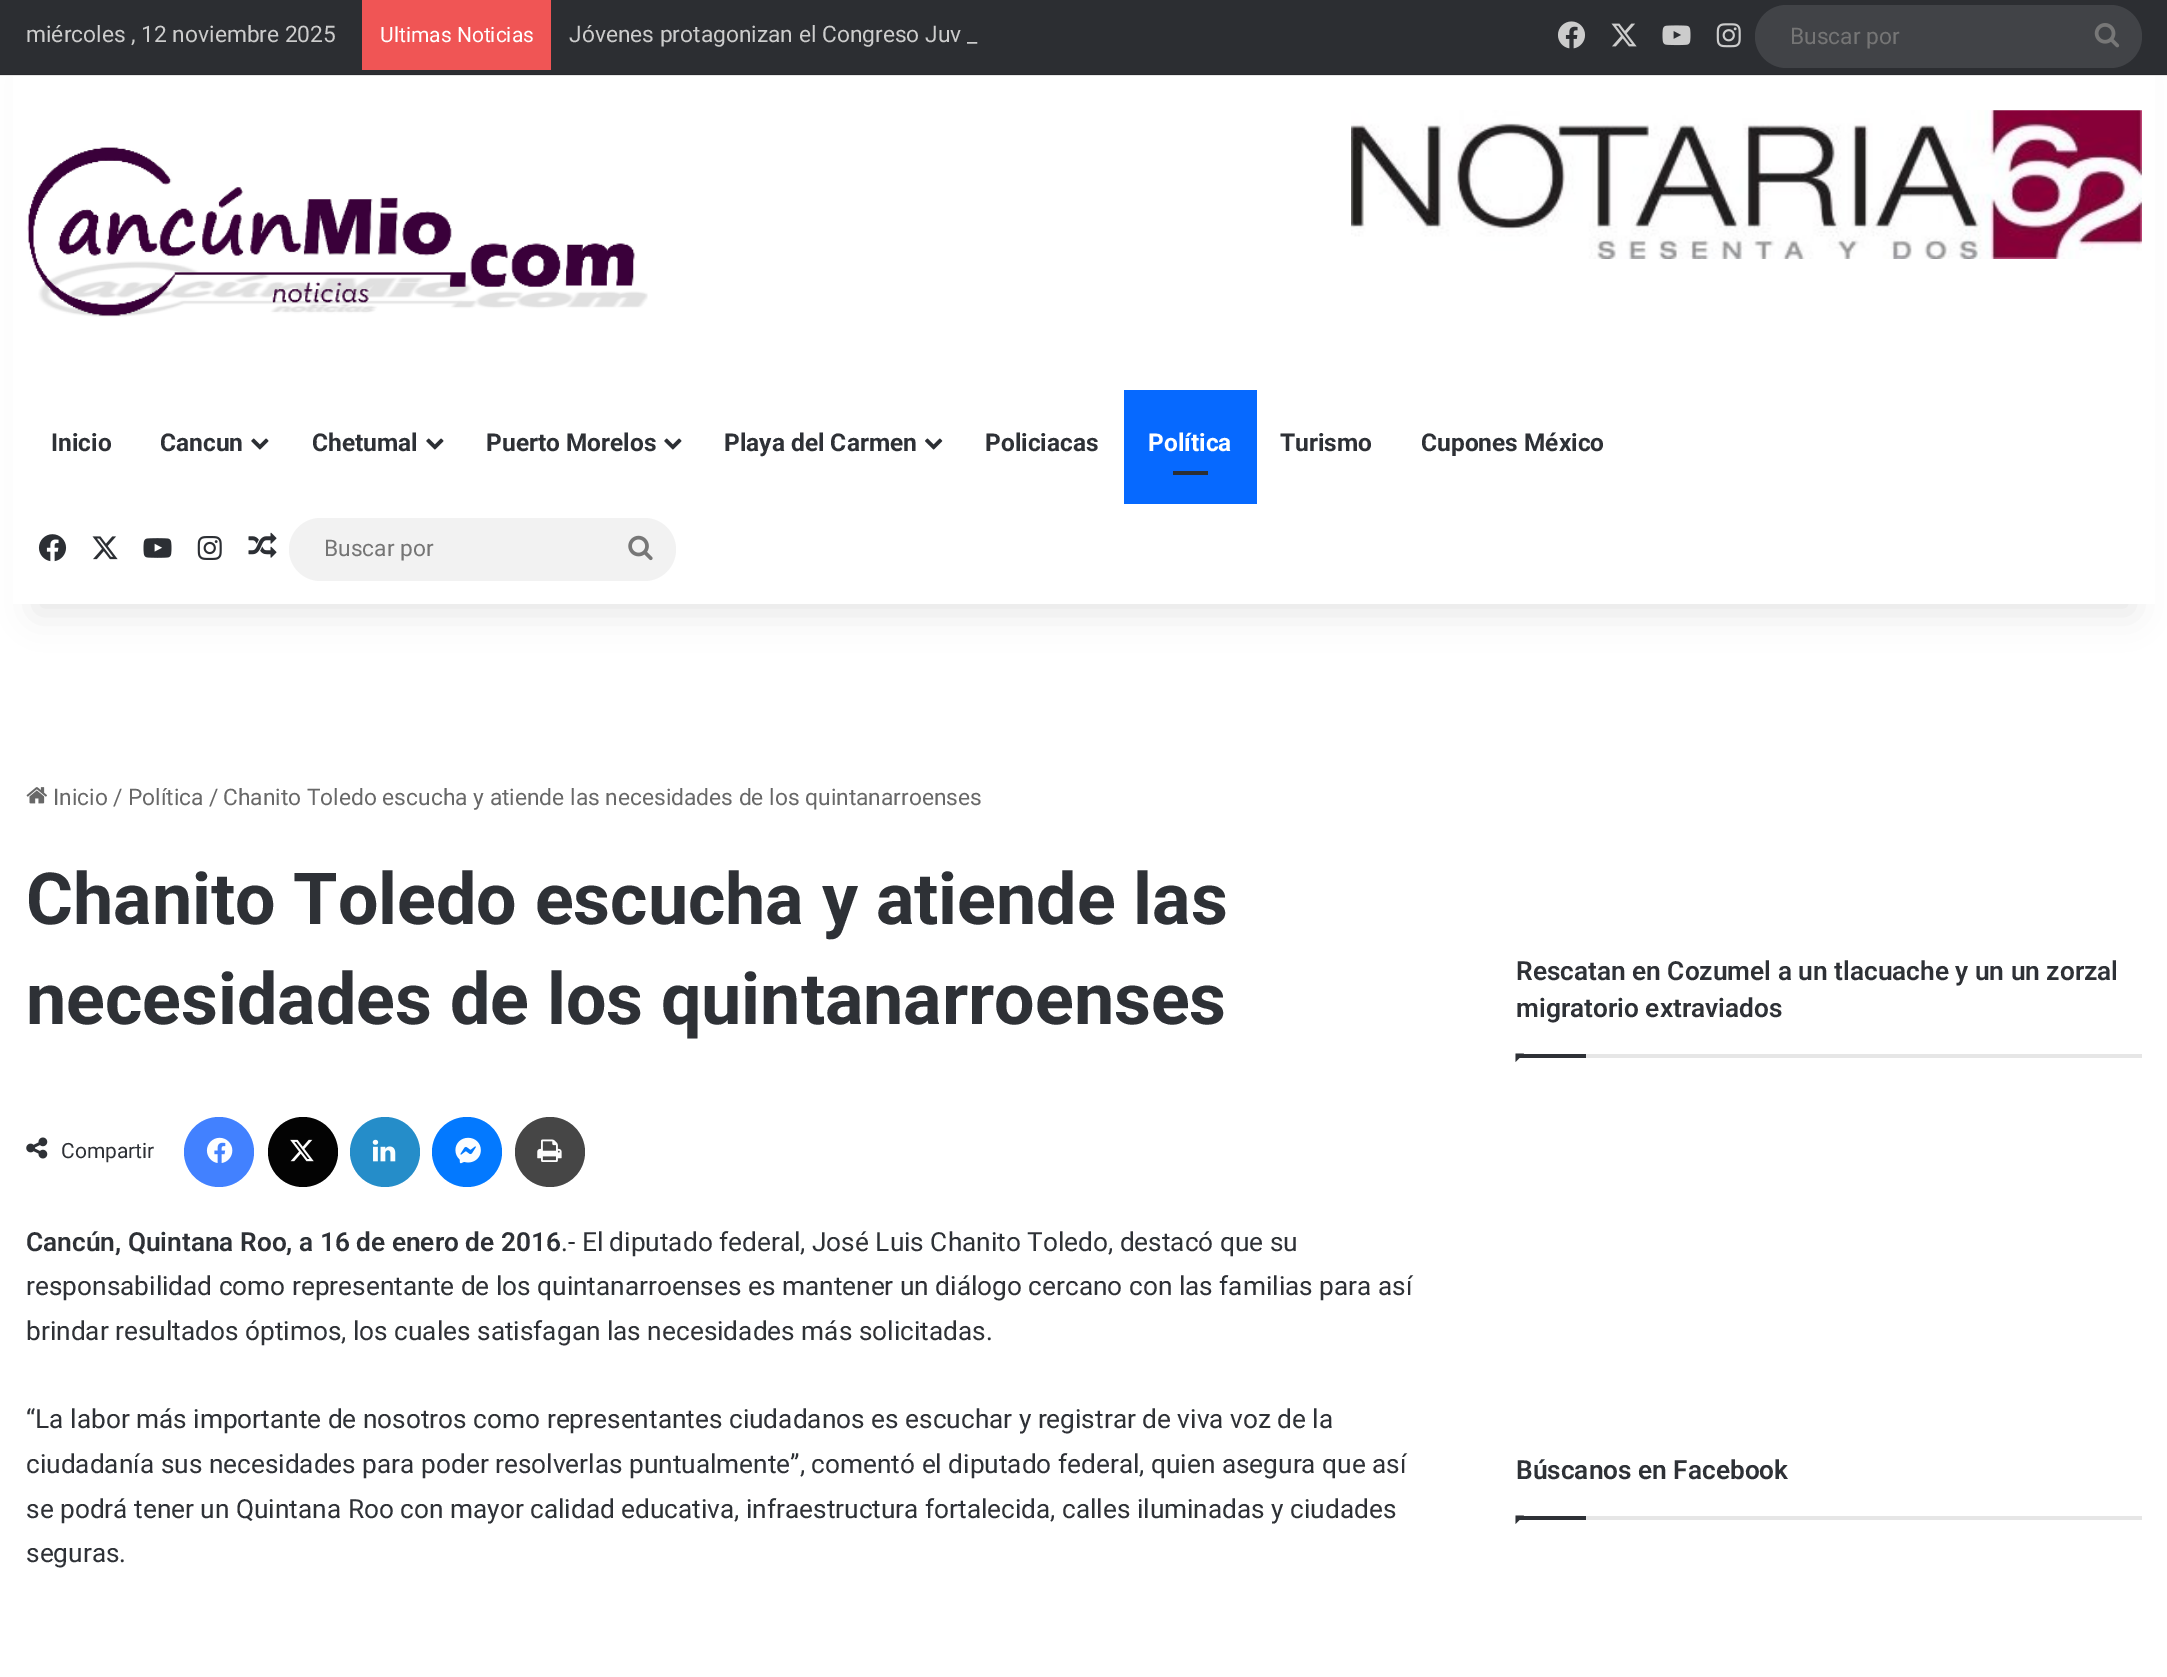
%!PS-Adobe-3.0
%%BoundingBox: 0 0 2167 1677
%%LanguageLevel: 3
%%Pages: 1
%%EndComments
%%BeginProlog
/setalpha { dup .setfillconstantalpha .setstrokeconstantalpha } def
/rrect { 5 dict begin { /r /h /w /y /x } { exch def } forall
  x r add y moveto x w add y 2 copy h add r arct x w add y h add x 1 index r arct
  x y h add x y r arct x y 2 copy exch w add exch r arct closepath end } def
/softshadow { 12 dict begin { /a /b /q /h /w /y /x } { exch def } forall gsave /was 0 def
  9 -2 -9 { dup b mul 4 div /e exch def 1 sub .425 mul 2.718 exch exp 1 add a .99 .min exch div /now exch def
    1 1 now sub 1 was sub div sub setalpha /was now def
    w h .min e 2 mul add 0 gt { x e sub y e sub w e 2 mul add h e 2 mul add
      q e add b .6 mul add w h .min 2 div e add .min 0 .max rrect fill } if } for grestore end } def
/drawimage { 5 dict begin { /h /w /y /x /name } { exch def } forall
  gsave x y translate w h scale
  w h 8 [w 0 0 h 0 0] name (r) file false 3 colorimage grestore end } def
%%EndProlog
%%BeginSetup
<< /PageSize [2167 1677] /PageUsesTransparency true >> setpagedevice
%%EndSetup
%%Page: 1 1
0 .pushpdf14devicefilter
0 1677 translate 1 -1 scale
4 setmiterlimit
1 setgray
0 0 2167 1677 rectfill
0 setgray
35 79 2098 534 0 17.5 0.1 softshadow
1 setgray
13 76 2142 528 rectfill
0.902 setgray
0 75 2167 1 rectfill
0.173 0.18 0.196 setrgbcolor
0 0 2167 74 rectfill
0.157 0.161 0.176 setrgbcolor
0 74 2167 1 rectfill
0.941 0.333 0.333 setrgbcolor
362 0 189 70 rectfill
(images/1.raw) 1558 21 27 28 drawimage
(images/2.raw) 1611 23 26 24 drawimage
(images/3.raw) 1662 25 29 21 drawimage
(images/4.raw) 1716 23 25 25 drawimage
0.255 0.263 0.278 setrgbcolor
1755 5 387 63 31.5 rrect fill
(images/5.raw) 2094 23 26 25 drawimage
(images/6.raw) 27 147 621 170 drawimage
(images/7.raw) 1351 110 791 149 drawimage
(images/8.raw) 251 438 18 12 drawimage
(images/8.raw) 426 438 18 12 drawimage
(images/8.raw) 664 438 18 12 drawimage
(images/9.raw) 925 438 18 12 drawimage
0.024 0.412 1 setrgbcolor
1124 390 133 114 rectfill
0.173 0.184 0.204 setrgbcolor
1173 471 35 4 rectfill
(images/10.raw) 38 534 29 28 drawimage
(images/11.raw) 92 536 26 24 drawimage
(images/12.raw) 143 538 29 20 drawimage
(images/13.raw) 197 536 25 24 drawimage
(images/14.raw) 248 532 29 26 drawimage
0.949 setgray
289 518 387 63 31.5 rrect fill
(images/15.raw) 628 535 25 26 drawimage
(images/16.raw) 26 787 21 17 drawimage
(images/17.raw) 26 1137 22 22 drawimage
0.259 0.506 1 setrgbcolor
newpath 219 1152 35 0 360 arc closepath fill
(images/18.raw) 206 1137 27 26 drawimage
0.012 setgray
newpath 303 1152 35 0 360 arc closepath fill
(images/19.raw) 290 1139 24 23 drawimage
0.145 0.553 0.788 setrgbcolor
newpath 385 1152 35 0 360 arc closepath fill
(images/20.raw) 372 1139 24 23 drawimage
0.012 0.475 1 setrgbcolor
newpath 467 1152 35 0 360 arc closepath fill
(images/21.raw) 455 1137 26 27 drawimage
0.275 setgray
newpath 550 1152 35 0 360 arc closepath fill
(images/22.raw) 537 1139 25 23 drawimage
0.902 setgray
1586 1054 556 4 rectfill
0.18 0.192 0.212 setrgbcolor
newpath 1515.5 1053.5 moveto 1524 1053.5 lineto 1515.5 1062 lineto closepath fill
1516 1054 70 4 rectfill
0.902 setgray
1586 1516 556 4 rectfill
0.18 0.192 0.212 setrgbcolor
newpath 1515.5 1515.5 moveto 1524 1515.5 lineto 1515.5 1524 lineto closepath fill
1516 1516 70 4 rectfill
/Roboto-Regular [22.75 0 0 -22.75 0 0] selectfont
0.8 setgray
26 42 moveto (miércoles , 12 noviembre 2025) show
/Roboto-Regular [21 0 0 -21 0 0] selectfont
1 setgray
380 42 moveto (Ultimas Noticias) show
/Roboto-Regular [22.75 0 0 -22.75 0 0] selectfont
0.8 setgray
569 42 moveto (Jóvenes protagonizan el Congreso Juv) show
967 42 moveto (_) show
0.459 setgray
1790 44 moveto (Buscar por) show
/Roboto-Bold [24.5 0 0 -24.5 0 0] selectfont
0.18 0.192 0.212 setrgbcolor
51 451 moveto (Inicio) show
160 451 moveto (Cancun) show
312 451 moveto (Chetumal) show
486 451 moveto (Puerto Morelos) show
724 451 moveto (Playa del Carmen) show
985 451 moveto (Policiacas) show
1 setgray
1148 451 moveto (Política) show
0.18 0.192 0.212 setrgbcolor
1280 451 moveto (Turismo) show
1421 451 moveto (Cupones México) show
/Roboto-Regular [22.75 0 0 -22.75 0 0] selectfont
0.459 setgray
324 556 moveto (Buscar por) show
0.408 setgray
53 805 moveto (Inicio) show
113 805 moveto (/) show
128 805 moveto (Política) show
209 805 moveto (/) show
223 805 moveto (Chanito Toledo escucha y atiende las necesidades de los quintanarroenses) show
/Roboto-Bold [71.75 0 0 -71.75 0 0] selectfont
0.18 0.192 0.212 setrgbcolor
26 924 moveto (Chanito Toledo escucha y atiende las) show
26 1024 moveto (necesidades de los quintanarroenses) show
/Roboto-Regular [21 0 0 -21 0 0] selectfont
61 1158 moveto (Compartir) show
/Roboto-SemiBold [26.25 0 0 -26.25 0 0] selectfont
26 1251 moveto (Cancún, Quintana Roo, a 16 de enero de 2016) show
/Roboto-Regular [26.25 0 0 -26.25 0 0] selectfont
561 1251 moveto (.- El diputado federal, José Luis Chanito Toledo, destacó que su) show
26 1295 moveto (responsabilidad como representante de los quintanarroenses es mantener un diálogo cercano con las familias para así) show
26 1340 moveto (brindar resultados óptimos, los cuales satisfagan las necesidades más solicitadas.) show
26 1428 moveto (“La labor más importante de nosotros como representantes ciudadanos es escuchar y registrar de viva voz de la) show
26 1473 moveto (ciudadanía sus necesidades para poder resolverlas puntualmente”, comentó el diputado federal, quien asegura que así) show
26 1518 moveto (se podrá tener un Quintana Roo con mayor calidad educativa, infraestructura fortalecida, calles iluminadas y ciudades) show
26 1562 moveto (seguras.) show
/Roboto-SemiBold [26.25 0 0 -26.25 0 0] selectfont
1516 980 moveto (Rescatan en Cozumel a un tlacuache y un un zorzal) show
1516 1017 moveto (migratorio extraviados) show
1516 1479 moveto (Búscanos en Facebook) show
.poppdf14devicefilter showpage
%%EOF
